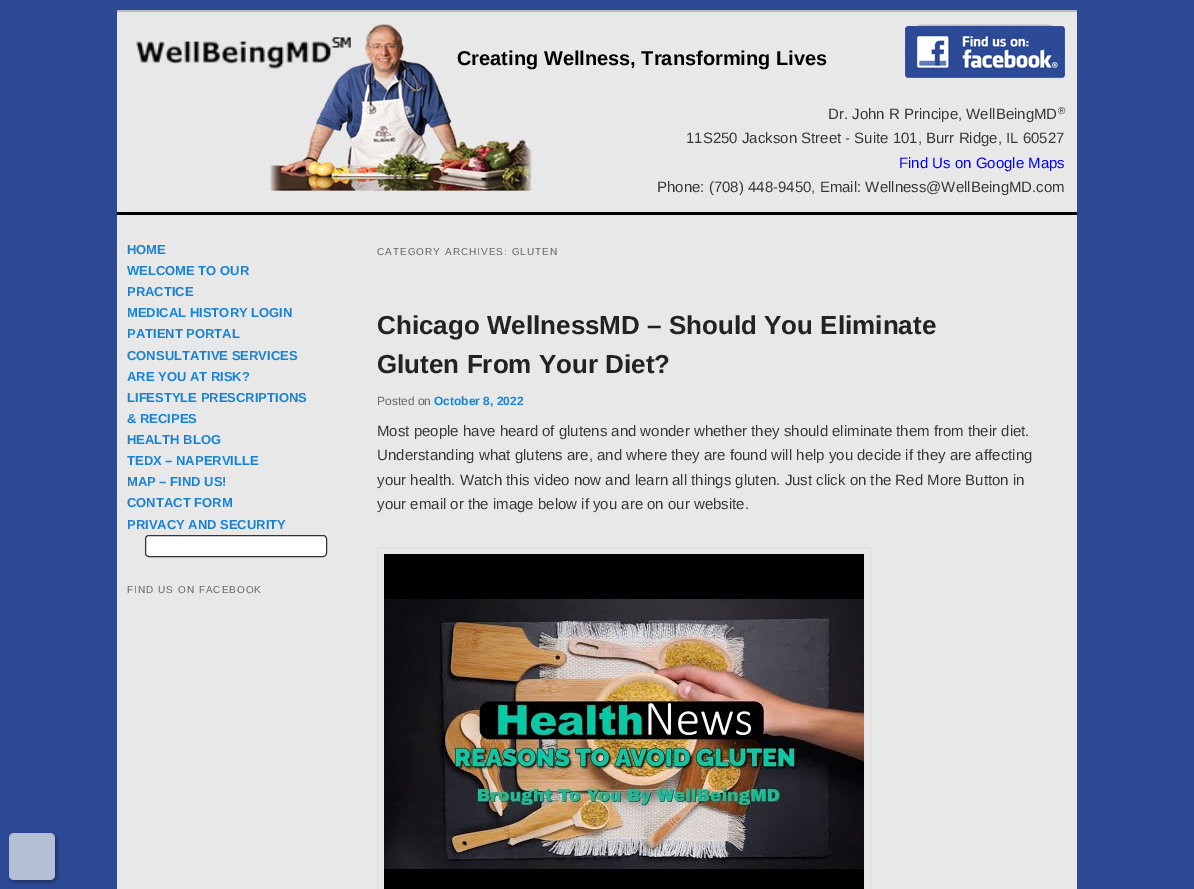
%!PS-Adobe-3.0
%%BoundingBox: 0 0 1194 889
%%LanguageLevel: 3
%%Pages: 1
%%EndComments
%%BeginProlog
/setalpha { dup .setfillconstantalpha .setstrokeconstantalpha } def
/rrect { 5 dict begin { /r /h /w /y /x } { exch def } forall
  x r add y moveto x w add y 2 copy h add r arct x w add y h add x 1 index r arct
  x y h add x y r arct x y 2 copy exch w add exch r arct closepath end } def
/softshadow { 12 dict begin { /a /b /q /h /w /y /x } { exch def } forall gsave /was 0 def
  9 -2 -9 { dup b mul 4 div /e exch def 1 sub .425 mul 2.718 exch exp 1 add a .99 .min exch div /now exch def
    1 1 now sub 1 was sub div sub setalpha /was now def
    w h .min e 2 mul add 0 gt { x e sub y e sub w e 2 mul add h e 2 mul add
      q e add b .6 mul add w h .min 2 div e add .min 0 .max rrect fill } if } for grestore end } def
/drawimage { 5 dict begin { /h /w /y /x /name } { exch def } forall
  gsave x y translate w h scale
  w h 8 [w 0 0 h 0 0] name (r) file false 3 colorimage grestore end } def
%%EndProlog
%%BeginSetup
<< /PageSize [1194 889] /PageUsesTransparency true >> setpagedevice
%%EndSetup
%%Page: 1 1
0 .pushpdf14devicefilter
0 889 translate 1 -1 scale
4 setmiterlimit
0.173 0.286 0.584 setrgbcolor
0 0 1194 889 rectfill
0.91 setgray
117 10 960 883 4 rrect fill
0.733 setgray
117 10 960 2 rectfill
(images/1.raw) 136 37 215 32 drawimage
(images/2.raw) 270 24 262 167 drawimage
(images/3.raw) 905 24 160 54 drawimage
0 setgray
117 212 960 3 rectfill
1 setgray
145.5 535.5 181 21 3.5 rrect gsave fill grestore
0.2 setgray
stroke
0.867 setgray
377.5 547.5 493 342 rectstroke
(images/4.raw) 384 554 480 335 drawimage
gsave
newpath 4 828 moveto 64 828 lineto 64 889 lineto 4 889 lineto closepath 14 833 moveto 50 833 lineto 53 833 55 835 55 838 curveto 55 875 lineto 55 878 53 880 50 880 curveto 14 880 lineto 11 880 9 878 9 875 curveto 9 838 lineto 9 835 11 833 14 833 curveto closepath eoclip newpath
0.051 0.086 0.176 setrgbcolor
11 835 46 47 5 2 0.47 softshadow
grestore
0.99 setalpha
0.714 0.749 0.835 setrgbcolor
9 833 46 47 5 rrect fill
/LiberationSans-Bold [20 0 0 -20 0 0] selectfont
1 setalpha
0 setgray
457 65 moveto (Creating Wellness, Transforming Lives) show
/LiberationSans-Regular [15 0 0 -15 0 0] selectfont
0.216 setgray
828 119 moveto (Dr. John R Principe, WellBeingMD) show
/LiberationSans-Regular [10 0 0 -10 0 0] selectfont
1058 114 moveto (®) show
/LiberationSans-Regular [15 0 0 -15 0 0] selectfont
686 143 moveto (11S250 Jackson Street - Suite 101, Burr Ridge, IL 60527) show
0 0 1 setrgbcolor
899 168 moveto (Find Us on Google Maps) show
0.216 setgray
657 192 moveto (Phone: \(708\) 448-9450, Email: Wellness@WellBeingMD.com) show
/LiberationSans-Bold [13 0 0 -13 0 0] selectfont
0.098 0.51 0.82 setrgbcolor
127 254 moveto (HOME) show
127 275 moveto (WELCOME TO OUR) show
127 296 moveto (PRACTICE) show
127 317 moveto (MEDICAL HISTORY LOGIN) show
127 338 moveto (PATIENT PORTAL) show
127 360 moveto (CONSULTATIVE SERVICES) show
127 381 moveto (ARE YOU AT RISK?) show
127 402 moveto (LIFESTYLE PRESCRIPTIONS) show
127 423 moveto (& RECIPES) show
127 444 moveto (HEALTH BLOG) show
127 465 moveto (TEDX – NAPERVILLE) show
127 486 moveto (MAP – FIND US!) show
127 507 moveto (CONTACT FORM) show
127 529 moveto (PRIVACY AND SECURITY) show
/LiberationSans-Regular [10 0 0 -10 0 0] selectfont
0.4 setgray
127 593 moveto 1 0 (FIND US ON FACEBOOK) ashow
377 255 moveto 1 0 (CATEGORY ARCHIVES: GLUTEN) ashow
/LiberationSans-Bold [26 0 0 -26 0 0] selectfont
0.133 setgray
377 334 moveto (Chicago WellnessMD – Should You Eliminate) show
377 373 moveto (Gluten From Your Diet?) show
/LiberationSans-Regular [12 0 0 -12 0 0] selectfont
0.4 setgray
377 405 moveto (Posted on) show
/LiberationSans-Bold [12 0 0 -12 0 0] selectfont
0.098 0.51 0.82 setrgbcolor
434 405 moveto (October 8, 2022) show
/LiberationSans-Regular [15 0 0 -15 0 0] selectfont
0.216 setgray
377 436 moveto (Most people have heard of glutens and wonder whether they should eliminate them from their diet.) show
377 460 moveto (Understanding what glutens are, and where they are found will help you decide if they are affecting) show
377 485 moveto (your health. Watch this video now and learn all things gluten. Just click on the Red More Button in) show
377 509 moveto (your email or the image below if you are on our website.) show
.poppdf14devicefilter showpage
%%EOF
